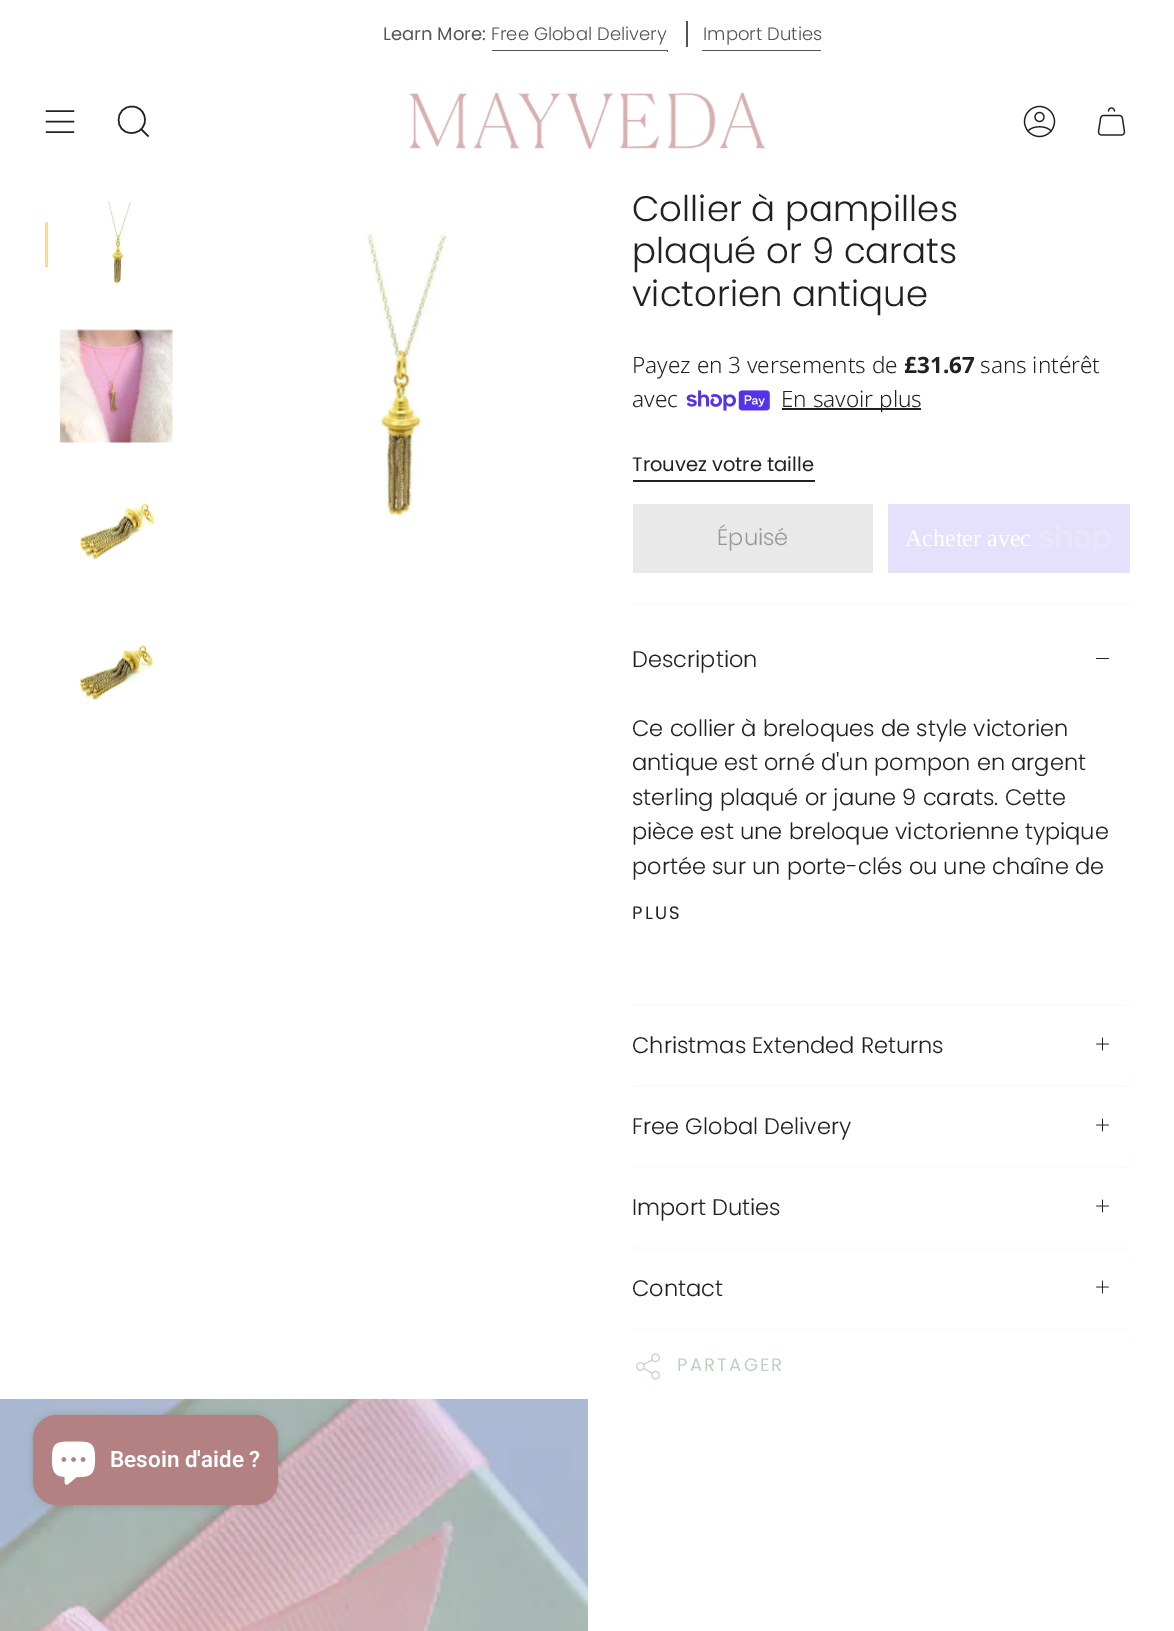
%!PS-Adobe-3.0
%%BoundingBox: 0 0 1174 1631
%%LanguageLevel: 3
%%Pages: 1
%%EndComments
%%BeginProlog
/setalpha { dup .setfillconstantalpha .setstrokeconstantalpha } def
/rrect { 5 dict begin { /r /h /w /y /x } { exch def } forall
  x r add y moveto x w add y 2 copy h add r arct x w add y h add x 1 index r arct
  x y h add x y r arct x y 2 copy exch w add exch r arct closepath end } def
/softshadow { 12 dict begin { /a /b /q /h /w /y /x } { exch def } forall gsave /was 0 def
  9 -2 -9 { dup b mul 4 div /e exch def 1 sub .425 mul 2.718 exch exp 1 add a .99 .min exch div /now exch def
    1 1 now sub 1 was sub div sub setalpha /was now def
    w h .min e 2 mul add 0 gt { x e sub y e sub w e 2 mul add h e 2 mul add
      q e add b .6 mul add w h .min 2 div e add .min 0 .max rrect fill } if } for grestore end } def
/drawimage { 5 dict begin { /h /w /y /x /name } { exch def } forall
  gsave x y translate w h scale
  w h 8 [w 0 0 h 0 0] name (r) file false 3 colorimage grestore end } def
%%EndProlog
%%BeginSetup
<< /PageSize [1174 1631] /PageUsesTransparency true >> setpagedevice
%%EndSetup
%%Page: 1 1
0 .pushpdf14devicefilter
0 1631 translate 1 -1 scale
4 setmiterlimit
1 setgray
0 0 1174 1631 rectfill
0.329 setgray
newpath 492 50 moveto 492 51 lineto 667 51 lineto 667 52 lineto 668 52 lineto 668 50 lineto closepath fill
686 21 2 26 rectfill
newpath 702 50 moveto 702 52 lineto 702 51 lineto 821 51 lineto 821 52 lineto 821 50 lineto closepath fill
0.129 setgray
1.5 setlinewidth
1 setlinecap
1 setlinejoin
newpath 46.5 111 moveto 73.5 111 lineto 46.5 121.5 moveto 73.5 121.5 lineto 46.5 132 moveto 73.5 132 lineto stroke
0 setlinecap
0 setlinejoin
newpath 132 106.5 moveto 144.5 106.5 150 123 139.5 130.5 curveto 137 132.5 134 133 131 133 curveto 114 132.5 114.5 106.5 132 106.5 curveto closepath 141 129 moveto 148.5 136.5 lineto stroke
(images/1.raw) 409 92 357 57 drawimage
(images/2.raw) 1023 105 33 33 drawimage
(images/3.raw) 1097 107 29 29 drawimage
1 0.851 0.553 setrgbcolor
45 222 3 45 rectfill
(images/4.raw) 108 200 24 84 drawimage
(images/5.raw) 60 329 113 114 drawimage
(images/6.raw) 80 503 75 57 drawimage
(images/7.raw) 80 644 74 57 drawimage
(images/8.raw) 365 233 83 284 drawimage
(images/9.raw) 686 390 84 21 drawimage
0.129 setgray
782 408 139 2 rectfill
633 480 182 2 rectfill
0.914 setgray
633 504 240 69 rectfill
0.898 0.878 0.988 setrgbcolor
888 504 242 69 rectfill
(images/10.raw) 1039 525 73 29 drawimage
1 0.984 0.953 setrgbcolor
633 603 497 2 rectfill
633 1328 497 1 rectfill
(images/11.raw) 1096 658 13 1 drawimage
633 1004 497 2 rectfill
(images/12.raw) 1096 1037 13 14 drawimage
633 1085 497 2 rectfill
(images/12.raw) 1096 1118 13 14 drawimage
633 1166 497 2 rectfill
(images/12.raw) 1096 1199 13 14 drawimage
633 1247 497 2 rectfill
(images/12.raw) 1096 1280 13 14 drawimage
(images/13.raw) 636 1353 24 27 drawimage
(images/14.raw) 0 1399 588 232 drawimage
0 setgray
33 1415 245 90 24 4 0.15 softshadow
0.702 0.506 0.506 setrgbcolor
33 1415 245 90 24 rrect fill
(images/15.raw) 51 1441 45 44 drawimage
/Poppins-Regular [18 0 0 -18 0 0] selectfont
0.329 setgray
383 40 moveto (Learn More:) show
/Poppins-Light [18 0 0 -18 0 0] selectfont
491 40 moveto (Free Global Delivery) show
703 40 moveto (Import Duties) show
/Poppins-Light [35.5 0 0 -35.5 0 0] selectfont
0.129 setgray
632 221 moveto (Collier à pampilles) show
632 263 moveto (plaqué or 9 carats) show
632 306 moveto (victorien antique) show
/NotoSans-Light [22.5 0 0 -22.5 0 0] selectfont
632 373 moveto (Payez en 3 versements de) show
/NotoSans-Bold [22.5 0 0 -22.5 0 0] selectfont
904 373 moveto (£31.67) show
/NotoSans-Light [22.5 0 0 -22.5 0 0] selectfont
980 373 moveto (sans intérêt) show
632 407 moveto (avec) show
781 407 moveto (En savoir plus) show
/Poppins-Regular [19.5 0 0 -19.5 0 0] selectfont
632 471 moveto (Trouvez votre taille) show
/Poppins-Light [22.5 0 0 -22.5 0 0] selectfont
0.6 setgray
717 545 moveto (Épuisé) show
/LiberationSerif-Regular [24 0 0 -24 0 0] selectfont
1 setgray
905 546 moveto (Acheter avec) show
/Poppins-Light [22.5 0 0 -22.5 0 0] selectfont
0.129 setgray
632 667 moveto (Description) show
632 736 moveto (Ce collier à breloques de style victorien) show
632 770 moveto (antique est orné d'un pompon en argent) show
632 805 moveto (sterling plaqué or jaune 9 carats. Cette) show
632 839 moveto (pièce est une breloque victorienne typique) show
632 874 moveto (portée sur un porte-clés ou une chaîne de) show
/Poppins-Regular [18 0 0 -18 0 0] selectfont
632 919 moveto 2.25 0 (PLUS) ashow
/Poppins-Light [22.5 0 0 -22.5 0 0] selectfont
632 1053 moveto (Christmas Extended Returns) show
632 1134 moveto (Free Global Delivery) show
632 1215 moveto (Import Duties) show
632 1296 moveto (Contact) show
/Poppins-Regular [18 0 0 -18 0 0] selectfont
0.745 0.82 0.757 setrgbcolor
677 1371 moveto 2.25 0 (PARTAGER) ashow
/Roboto-SemiBold [22.5 0 0 -22.5 0 0] selectfont
1 setgray
110 1467 moveto (Besoin d'aide ?) show
.poppdf14devicefilter showpage
%%EOF
